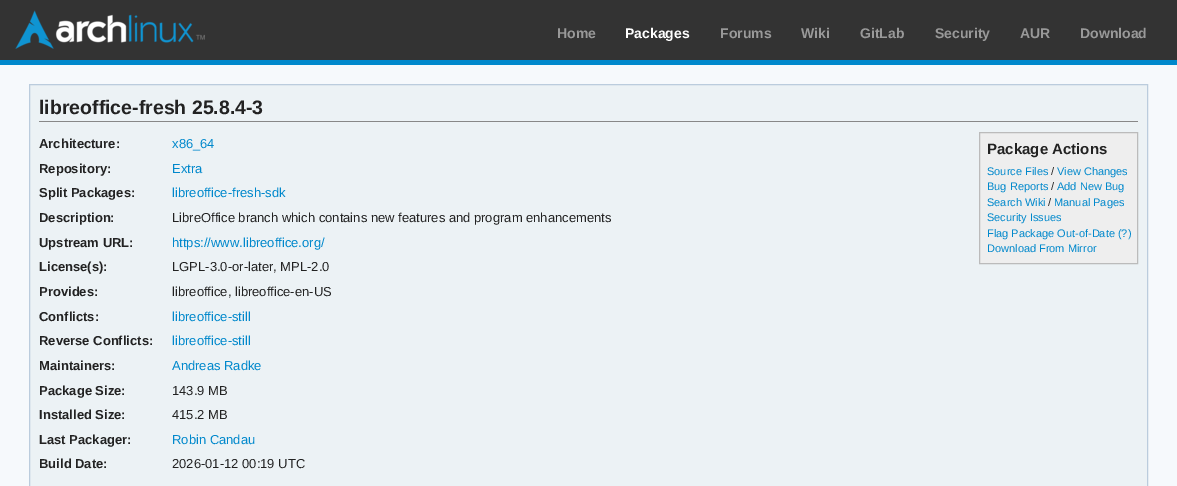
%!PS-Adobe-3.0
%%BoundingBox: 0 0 1177 486
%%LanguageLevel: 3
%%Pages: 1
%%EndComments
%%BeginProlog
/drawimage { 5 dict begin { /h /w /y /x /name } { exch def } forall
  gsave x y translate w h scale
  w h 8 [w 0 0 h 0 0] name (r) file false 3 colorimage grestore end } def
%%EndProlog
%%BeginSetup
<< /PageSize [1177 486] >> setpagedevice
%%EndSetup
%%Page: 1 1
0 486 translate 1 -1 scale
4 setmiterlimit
0.965 0.976 0.988 setrgbcolor
0 0 1177 486 rectfill
0.2 setgray
0 0 1177 60 rectfill
0 0.533 0.8 setrgbcolor
0 60 1177 5 rectfill
(images/1.raw) 15 10 190 39 drawimage
0.925 0.949 0.961 setrgbcolor
newpath 29.5 84.5 moveto 1147.5 84.5 lineto 1147.5 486.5 lineto 29.5 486.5 lineto closepath gsave fill grestore
0.733 0.8 0.867 setrgbcolor
stroke
0.533 setgray
39 121 1099 1 rectfill
0.933 setgray
newpath 979.5 132.5 moveto 1137.5 132.5 lineto 1137.5 263.5 lineto 979.5 263.5 lineto closepath gsave fill grestore
0.733 setgray
stroke
/LiberationSans-Bold [14 0 0 -14 0 0] selectfont
0.6 setgray
557 38 moveto (Home) show
1 setgray
625 38 moveto (Packages) show
0.6 setgray
720 38 moveto (Forums) show
801 38 moveto (Wiki) show
860 38 moveto (GitLab) show
935 38 moveto (Security) show
1020 38 moveto (AUR) show
1080 38 moveto (Download) show
/LiberationSans-Bold [19.5 0 0 -19.5 0 0] selectfont
0.133 setgray
39 114 moveto (libreoffice-fresh 25.8.4-3) show
/LiberationSans-Bold [13 0 0 -13 0 0] selectfont
39 148 moveto (Architecture:) show
/LiberationSans-Regular [13 0 0 -13 0 0] selectfont
0 0.533 0.8 setrgbcolor
172 148 moveto (x86_64) show
/LiberationSans-Bold [13 0 0 -13 0 0] selectfont
0.133 setgray
39 173 moveto (Repository:) show
/LiberationSans-Regular [13 0 0 -13 0 0] selectfont
0 0.533 0.8 setrgbcolor
172 173 moveto (Extra) show
/LiberationSans-Bold [13 0 0 -13 0 0] selectfont
0.133 setgray
39 197 moveto (Split Packages:) show
/LiberationSans-Regular [13 0 0 -13 0 0] selectfont
0 0.533 0.8 setrgbcolor
172 197 moveto (libreoffice-fresh-sdk) show
/LiberationSans-Bold [13 0 0 -13 0 0] selectfont
0.133 setgray
39 222 moveto (Description:) show
/LiberationSans-Regular [13 0 0 -13 0 0] selectfont
172 222 moveto (LibreOffice branch which contains new features and program enhancements) show
/LiberationSans-Bold [13 0 0 -13 0 0] selectfont
39 247 moveto (Upstream URL:) show
/LiberationSans-Regular [13 0 0 -13 0 0] selectfont
0 0.533 0.8 setrgbcolor
172 247 moveto (https://www.libreoffice.org/) show
/LiberationSans-Bold [13 0 0 -13 0 0] selectfont
0.133 setgray
39 271 moveto (License\(s\):) show
/LiberationSans-Regular [13 0 0 -13 0 0] selectfont
172 271 moveto (LGPL-3.0-or-later, MPL-2.0) show
/LiberationSans-Bold [13 0 0 -13 0 0] selectfont
39 296 moveto (Provides:) show
/LiberationSans-Regular [13 0 0 -13 0 0] selectfont
172 296 moveto (libreoffice, libreoffice-en-US) show
/LiberationSans-Bold [13 0 0 -13 0 0] selectfont
39 321 moveto (Conflicts:) show
/LiberationSans-Regular [13 0 0 -13 0 0] selectfont
0 0.533 0.8 setrgbcolor
172 321 moveto (libreoffice-still) show
/LiberationSans-Bold [13 0 0 -13 0 0] selectfont
0.133 setgray
39 345 moveto (Reverse Conflicts:) show
/LiberationSans-Regular [13 0 0 -13 0 0] selectfont
0 0.533 0.8 setrgbcolor
172 345 moveto (libreoffice-still) show
/LiberationSans-Bold [13 0 0 -13 0 0] selectfont
0.133 setgray
39 370 moveto (Maintainers:) show
/LiberationSans-Regular [13 0 0 -13 0 0] selectfont
0 0.533 0.8 setrgbcolor
172 370 moveto (Andreas Radke) show
/LiberationSans-Bold [13 0 0 -13 0 0] selectfont
0.133 setgray
39 395 moveto (Package Size:) show
/LiberationSans-Regular [13 0 0 -13 0 0] selectfont
172 395 moveto (143.9 MB) show
/LiberationSans-Bold [13 0 0 -13 0 0] selectfont
39 419 moveto (Installed Size:) show
/LiberationSans-Regular [13 0 0 -13 0 0] selectfont
172 419 moveto (415.2 MB) show
/LiberationSans-Bold [13 0 0 -13 0 0] selectfont
39 444 moveto (Last Packager:) show
/LiberationSans-Regular [13 0 0 -13 0 0] selectfont
0 0.533 0.8 setrgbcolor
172 444 moveto (Robin Candau) show
/LiberationSans-Bold [13 0 0 -13 0 0] selectfont
0.133 setgray
39 468 moveto (Build Date:) show
/LiberationSans-Regular [13 0 0 -13 0 0] selectfont
172 468 moveto (2026-01-12 00:19 UTC) show
/LiberationSans-Bold [15 0 0 -15 0 0] selectfont
987 154 moveto (Package Actions) show
/LiberationSans-Regular [11 0 0 -11 0 0] selectfont
0 0.533 0.8 setrgbcolor
987 175 moveto (Source Files) show
0.133 setgray
1051 175 moveto (/) show
0 0.533 0.8 setrgbcolor
1057 175 moveto (View Changes) show
987 190 moveto (Bug Reports) show
0.133 setgray
1051 190 moveto (/) show
0 0.533 0.8 setrgbcolor
1057 190 moveto (Add New Bug) show
987 206 moveto (Search Wiki) show
0.133 setgray
1048 206 moveto (/) show
0 0.533 0.8 setrgbcolor
1054 206 moveto (Manual Pages) show
987 221 moveto (Security Issues) show
987 237 moveto (Flag Package Out-of-Date \(?\)) show
987 252 moveto (Download From Mirror) show
showpage
%%EOF
